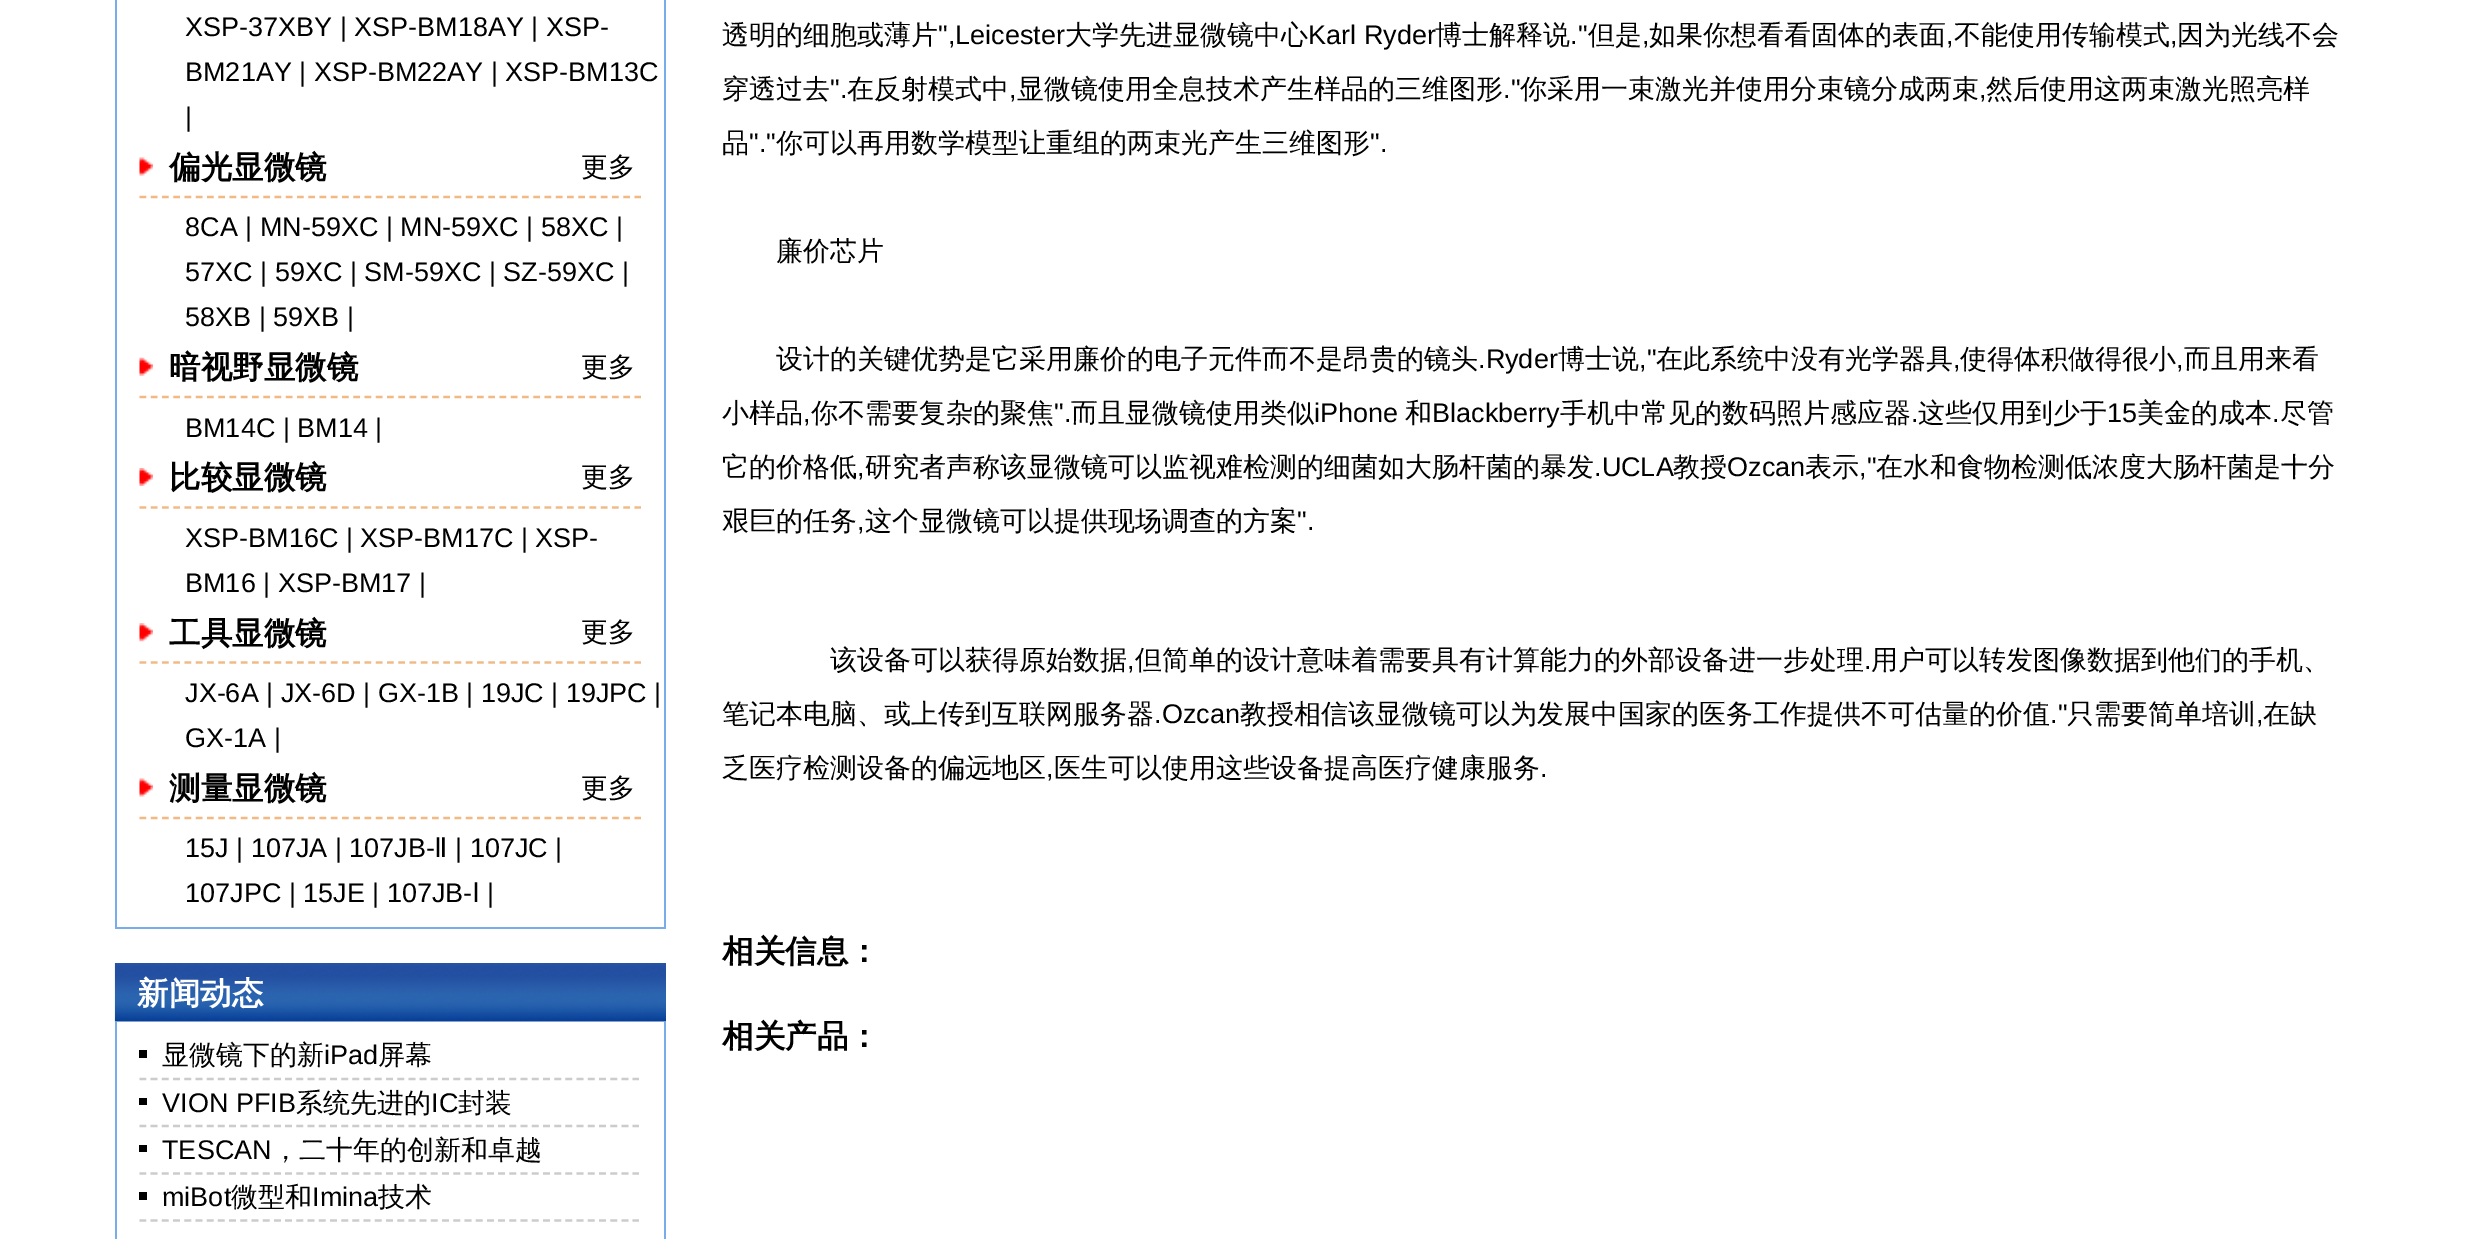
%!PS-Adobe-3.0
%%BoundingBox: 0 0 2479 1239
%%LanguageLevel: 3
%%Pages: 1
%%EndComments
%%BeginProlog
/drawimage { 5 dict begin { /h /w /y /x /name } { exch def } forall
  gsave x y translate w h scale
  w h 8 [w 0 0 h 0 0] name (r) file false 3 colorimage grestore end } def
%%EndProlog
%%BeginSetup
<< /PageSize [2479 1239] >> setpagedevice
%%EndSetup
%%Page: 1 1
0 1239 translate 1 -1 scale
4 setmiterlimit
1 setgray
0 0 2479 1239 rectfill
0.471 0.675 0.922 setrgbcolor
664 0 2 929 rectfill
115 927 551 2 rectfill
115 0 2 929 rectfill
(images/1.raw) 139 157 14 19 drawimage
0.945 0.729 0.522 setrgbcolor
2.2 setlinewidth
[6.75 4.5] 0 setdash
newpath 139.5 197 moveto 641 197 lineto stroke
(images/2.raw) 139 357 14 19 drawimage
newpath 139.5 397 moveto 641 397 lineto stroke
(images/3.raw) 139 468 14 18 drawimage
newpath 139.5 507.5 moveto 641 507.5 lineto stroke
(images/4.raw) 139 623 14 19 drawimage
newpath 139.5 662.5 moveto 641 662.5 lineto stroke
(images/1.raw) 139 778 14 19 drawimage
newpath 139.5 818 moveto 641 818 lineto stroke
(images/5.raw) 114 963 552 59 drawimage
0.471 0.675 0.922 setrgbcolor
664 1022 2 217 rectfill
115 1022 2 217 rectfill
0.8 setgray
[6.75 4.46] 0 setdash
newpath 139.5 1079 moveto 639 1079 lineto stroke
0 setgray
139 1050 8 8 rectfill
0.8 setgray
newpath 139.5 1126 moveto 639 1126 lineto stroke
0 setgray
139 1098 8 7 rectfill
0.8 setgray
newpath 139.5 1173.5 moveto 639 1173.5 lineto stroke
0 setgray
139 1145 8 7 rectfill
0.8 setgray
newpath 139.5 1220.5 moveto 639 1220.5 lineto stroke
0 setgray
139 1192 8 8 rectfill
/LiberationSans-Regular [27 0 0 -27 0 0] selectfont
185 36 moveto (XSP-37XBY | XSP-BM18AY | XSP-) show
185 81 moveto (BM21AY | XSP-BM22AY | XSP-BM13C) show
185 126 moveto (|) show
/WenQuanYiZenHei-Bold [31.5 0 0 -31.5 0 0] selectfont
169 178 moveto (偏光显微镜) show
/WenQuanYiZenHei-Medium [27 0 0 -27 0 0] selectfont
581 176 moveto (更多) show
/LiberationSans-Regular [27 0 0 -27 0 0] selectfont
185 236 moveto (8CA | MN-59XC | MN-59XC | 58XC |) show
185 281 moveto (57XC | 59XC | SM-59XC | SZ-59XC |) show
185 326 moveto (58XB | 59XB |) show
/WenQuanYiZenHei-Bold [31.5 0 0 -31.5 0 0] selectfont
169 378 moveto (暗视野显微镜) show
/WenQuanYiZenHei-Medium [27 0 0 -27 0 0] selectfont
581 376 moveto (更多) show
/LiberationSans-Regular [27 0 0 -27 0 0] selectfont
185 437 moveto (BM14C | BM14 |) show
/WenQuanYiZenHei-Bold [31.5 0 0 -31.5 0 0] selectfont
169 488 moveto (比较显微镜) show
/WenQuanYiZenHei-Medium [27 0 0 -27 0 0] selectfont
581 486 moveto (更多) show
/LiberationSans-Regular [27 0 0 -27 0 0] selectfont
185 547 moveto (XSP-BM16C | XSP-BM17C | XSP-) show
185 592 moveto (BM16 | XSP-BM17 |) show
/WenQuanYiZenHei-Bold [31.5 0 0 -31.5 0 0] selectfont
169 644 moveto (工具显微镜) show
/WenQuanYiZenHei-Medium [27 0 0 -27 0 0] selectfont
581 641 moveto (更多) show
/LiberationSans-Regular [27 0 0 -27 0 0] selectfont
185 702 moveto (JX-6A | JX-6D | GX-1B | 19JC | 19JPC |) show
185 747 moveto (GX-1A |) show
/WenQuanYiZenHei-Bold [31.5 0 0 -31.5 0 0] selectfont
169 799 moveto (测量显微镜) show
/WenQuanYiZenHei-Medium [27 0 0 -27 0 0] selectfont
581 797 moveto (更多) show
/LiberationSans-Regular [27 0 0 -27 0 0] selectfont
185 857 moveto (15J | 107JA | 107JB-) show
/DejaVuSans-Regular [27 0 0 -27 0 0] selectfont
434 857 moveto (Ⅱ) show
/LiberationSans-Regular [27 0 0 -27 0 0] selectfont
455 857 moveto (| 107JC |) show
185 902 moveto (107JPC | 15JE | 107JB-) show
/DejaVuSans-Regular [27 0 0 -27 0 0] selectfont
472 902 moveto (Ⅰ) show
/LiberationSans-Regular [27 0 0 -27 0 0] selectfont
487 902 moveto (|) show
/WenQuanYiZenHei-Bold [31.5 0 0 -31.5 0 0] selectfont
1 setgray
137 1004 moveto (新闻动态) show
/WenQuanYiZenHei-Medium [27 0 0 -27 0 0] selectfont
0 setgray
162 1064 moveto (显微镜下的新) show
/LiberationSans-Regular [27 0 0 -27 0 0] selectfont
324 1064 moveto (iPad) show
/WenQuanYiZenHei-Medium [27 0 0 -27 0 0] selectfont
378 1064 moveto (屏幕) show
/LiberationSans-Regular [27 0 0 -27 0 0] selectfont
162 1112 moveto (VION PFIB) show
/WenQuanYiZenHei-Medium [27 0 0 -27 0 0] selectfont
296 1112 moveto (系统先进的) show
/LiberationSans-Regular [27 0 0 -27 0 0] selectfont
431 1112 moveto (IC) show
/WenQuanYiZenHei-Medium [27 0 0 -27 0 0] selectfont
458 1112 moveto (封装) show
/LiberationSans-Regular [27 0 0 -27 0 0] selectfont
162 1159 moveto (TESCAN) show
/WenQuanYiZenHei-Medium [27 0 0 -27 0 0] selectfont
272 1159 moveto (，二十年的创新和卓越) show
/LiberationSans-Regular [27 0 0 -27 0 0] selectfont
162 1206 moveto (miBot) show
/WenQuanYiZenHei-Medium [27 0 0 -27 0 0] selectfont
231 1206 moveto (微型和) show
/LiberationSans-Regular [27 0 0 -27 0 0] selectfont
312 1206 moveto (Imina) show
/WenQuanYiZenHei-Medium [27 0 0 -27 0 0] selectfont
378 1206 moveto (技术) show
722 44 moveto (透明的细胞或薄片) show
/LiberationSans-Regular [27 0 0 -27 0 0] selectfont
938 44 moveto (",Leicester) show
/WenQuanYiZenHei-Medium [27 0 0 -27 0 0] selectfont
1065 44 moveto (大学先进显微镜中心) show
/LiberationSans-Regular [27 0 0 -27 0 0] selectfont
1308 44 moveto (Karl Ryder) show
/WenQuanYiZenHei-Medium [27 0 0 -27 0 0] selectfont
1435 44 moveto (博士解释说) show
/LiberationSans-Regular [27 0 0 -27 0 0] selectfont
1570 44 moveto (.") show
/WenQuanYiZenHei-Medium [27 0 0 -27 0 0] selectfont
1588 44 moveto (但是) show
/LiberationSans-Regular [27 0 0 -27 0 0] selectfont
1642 44 moveto (,) show
/WenQuanYiZenHei-Medium [27 0 0 -27 0 0] selectfont
1649 44 moveto (如果你想看看固体的表面) show
/LiberationSans-Regular [27 0 0 -27 0 0] selectfont
1946 44 moveto (,) show
/WenQuanYiZenHei-Medium [27 0 0 -27 0 0] selectfont
1954 44 moveto (不能使用传输模式) show
/LiberationSans-Regular [27 0 0 -27 0 0] selectfont
2170 44 moveto (,) show
/WenQuanYiZenHei-Medium [27 0 0 -27 0 0] selectfont
2177 44 moveto (因为光线不会) show
722 98 moveto (穿透过去) show
/LiberationSans-Regular [27 0 0 -27 0 0] selectfont
830 98 moveto (".) show
/WenQuanYiZenHei-Medium [27 0 0 -27 0 0] selectfont
847 98 moveto (在反射模式中) show
/LiberationSans-Regular [27 0 0 -27 0 0] selectfont
1009 98 moveto (,) show
/WenQuanYiZenHei-Medium [27 0 0 -27 0 0] selectfont
1017 98 moveto (显微镜使用全息技术产生样品的三维图形) show
/LiberationSans-Regular [27 0 0 -27 0 0] selectfont
1503 98 moveto (.") show
/WenQuanYiZenHei-Medium [27 0 0 -27 0 0] selectfont
1520 98 moveto (你采用一束激光并使用分束镜分成两束) show
/LiberationSans-Regular [27 0 0 -27 0 0] selectfont
1979 98 moveto (,) show
/WenQuanYiZenHei-Medium [27 0 0 -27 0 0] selectfont
1986 98 moveto (然后使用这两束激光照亮样) show
722 152 moveto (品) show
/LiberationSans-Regular [27 0 0 -27 0 0] selectfont
749 152 moveto (".") show
/WenQuanYiZenHei-Medium [27 0 0 -27 0 0] selectfont
776 152 moveto (你可以再用数学模型让重组的两束光产生三维图形) show
/LiberationSans-Regular [27 0 0 -27 0 0] selectfont
1370 152 moveto (".) show
/WenQuanYiZenHei-Medium [27 0 0 -27 0 0] selectfont
776 260 moveto (廉价芯片) show
776 368 moveto (设计的关键优势是它采用廉价的电子元件而不是昂贵的镜头) show
/LiberationSans-Regular [27 0 0 -27 0 0] selectfont
1478 368 moveto (.Ryder) show
/WenQuanYiZenHei-Medium [27 0 0 -27 0 0] selectfont
1558 368 moveto (博士说) show
/LiberationSans-Regular [27 0 0 -27 0 0] selectfont
1639 368 moveto (,") show
/WenQuanYiZenHei-Medium [27 0 0 -27 0 0] selectfont
1656 368 moveto (在此系统中没有光学器具) show
/LiberationSans-Regular [27 0 0 -27 0 0] selectfont
1953 368 moveto (,) show
/WenQuanYiZenHei-Medium [27 0 0 -27 0 0] selectfont
1960 368 moveto (使得体积做得很小) show
/LiberationSans-Regular [27 0 0 -27 0 0] selectfont
2176 368 moveto (,) show
/WenQuanYiZenHei-Medium [27 0 0 -27 0 0] selectfont
2184 368 moveto (而且用来看) show
722 422 moveto (小样品) show
/LiberationSans-Regular [27 0 0 -27 0 0] selectfont
803 422 moveto (,) show
/WenQuanYiZenHei-Medium [27 0 0 -27 0 0] selectfont
811 422 moveto (你不需要复杂的聚焦) show
/LiberationSans-Regular [27 0 0 -27 0 0] selectfont
1054 422 moveto (".) show
/WenQuanYiZenHei-Medium [27 0 0 -27 0 0] selectfont
1071 422 moveto (而且显微镜使用类似) show
/LiberationSans-Regular [27 0 0 -27 0 0] selectfont
1314 422 moveto (iPhone) show
/WenQuanYiZenHei-Medium [27 0 0 -27 0 0] selectfont
1405 422 moveto (和) show
/LiberationSans-Regular [27 0 0 -27 0 0] selectfont
1432 422 moveto (Blackberry) show
/WenQuanYiZenHei-Medium [27 0 0 -27 0 0] selectfont
1560 422 moveto (手机中常见的数码照片感应器) show
/LiberationSans-Regular [27 0 0 -27 0 0] selectfont
1911 422 moveto (.) show
/WenQuanYiZenHei-Medium [27 0 0 -27 0 0] selectfont
1918 422 moveto (这些仅用到少于) show
/LiberationSans-Regular [27 0 0 -27 0 0] selectfont
2107 422 moveto (15) show
/WenQuanYiZenHei-Medium [27 0 0 -27 0 0] selectfont
2137 422 moveto (美金的成本) show
/LiberationSans-Regular [27 0 0 -27 0 0] selectfont
2272 422 moveto (.) show
/WenQuanYiZenHei-Medium [27 0 0 -27 0 0] selectfont
2280 422 moveto (尽管) show
722 476 moveto (它的价格低) show
/LiberationSans-Regular [27 0 0 -27 0 0] selectfont
857 476 moveto (,) show
/WenQuanYiZenHei-Medium [27 0 0 -27 0 0] selectfont
865 476 moveto (研究者声称该显微镜可以监视难检测的细菌如大肠杆菌的暴发) show
/LiberationSans-Regular [27 0 0 -27 0 0] selectfont
1594 476 moveto (.UCLA) show
/WenQuanYiZenHei-Medium [27 0 0 -27 0 0] selectfont
1673 476 moveto (教授) show
/LiberationSans-Regular [27 0 0 -27 0 0] selectfont
1727 476 moveto (Ozcan) show
/WenQuanYiZenHei-Medium [27 0 0 -27 0 0] selectfont
1805 476 moveto (表示) show
/LiberationSans-Regular [27 0 0 -27 0 0] selectfont
1859 476 moveto (,") show
/WenQuanYiZenHei-Medium [27 0 0 -27 0 0] selectfont
1876 476 moveto (在水和食物检测低浓度大肠杆菌是十分) show
722 530 moveto (艰巨的任务) show
/LiberationSans-Regular [27 0 0 -27 0 0] selectfont
857 530 moveto (,) show
/WenQuanYiZenHei-Medium [27 0 0 -27 0 0] selectfont
865 530 moveto (这个显微镜可以提供现场调查的方案) show
/LiberationSans-Regular [27 0 0 -27 0 0] selectfont
1297 530 moveto (".) show
/WenQuanYiZenHei-Medium [27 0 0 -27 0 0] selectfont
830 669 moveto (该设备可以获得原始数据) show
/LiberationSans-Regular [27 0 0 -27 0 0] selectfont
1127 669 moveto (,) show
/WenQuanYiZenHei-Medium [27 0 0 -27 0 0] selectfont
1135 669 moveto (但简单的设计意味着需要具有计算能力的外部设备进一步处理) show
/LiberationSans-Regular [27 0 0 -27 0 0] selectfont
1864 669 moveto (.) show
/WenQuanYiZenHei-Medium [27 0 0 -27 0 0] selectfont
1871 669 moveto (用户可以转发图像数据到他们的手机、) show
722 723 moveto (笔记本电脑、或上传到互联网服务器) show
/LiberationSans-Regular [27 0 0 -27 0 0] selectfont
1154 723 moveto (.Ozcan) show
/WenQuanYiZenHei-Medium [27 0 0 -27 0 0] selectfont
1240 723 moveto (教授相信该显微镜可以为发展中国家的医务工作提供不可估量的价值) show
/LiberationSans-Regular [27 0 0 -27 0 0] selectfont
2050 723 moveto (.") show
/WenQuanYiZenHei-Medium [27 0 0 -27 0 0] selectfont
2067 723 moveto (只需要简单培训) show
/LiberationSans-Regular [27 0 0 -27 0 0] selectfont
2256 723 moveto (,) show
/WenQuanYiZenHei-Medium [27 0 0 -27 0 0] selectfont
2263 723 moveto (在缺) show
722 777 moveto (乏医疗检测设备的偏远地区) show
/LiberationSans-Regular [27 0 0 -27 0 0] selectfont
1046 777 moveto (,) show
/WenQuanYiZenHei-Medium [27 0 0 -27 0 0] selectfont
1054 777 moveto (医生可以使用这些设备提高医疗健康服务) show
/LiberationSans-Regular [27 0 0 -27 0 0] selectfont
1540 777 moveto (.) show
/WenQuanYiZenHei-Bold [31.5 0 0 -31.5 0 0] selectfont
722 962 moveto (相关信息：) show
722 1047 moveto (相关产品：) show
showpage
%%EOF
